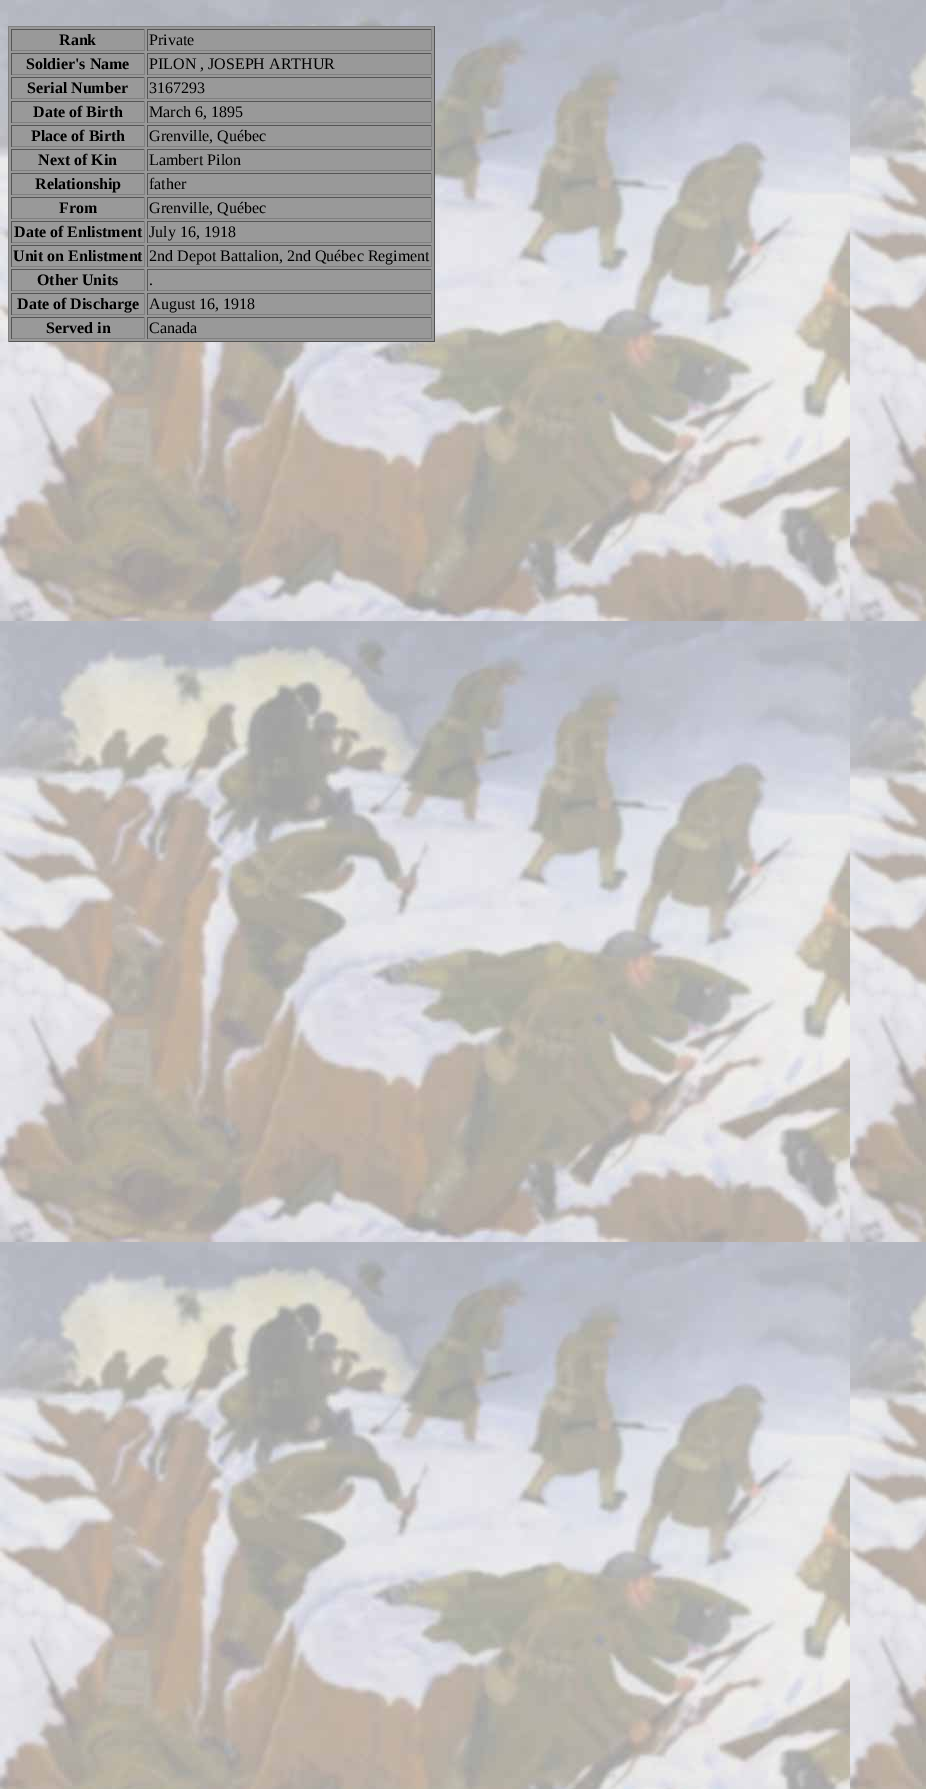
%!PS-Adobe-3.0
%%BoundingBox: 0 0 926 1789
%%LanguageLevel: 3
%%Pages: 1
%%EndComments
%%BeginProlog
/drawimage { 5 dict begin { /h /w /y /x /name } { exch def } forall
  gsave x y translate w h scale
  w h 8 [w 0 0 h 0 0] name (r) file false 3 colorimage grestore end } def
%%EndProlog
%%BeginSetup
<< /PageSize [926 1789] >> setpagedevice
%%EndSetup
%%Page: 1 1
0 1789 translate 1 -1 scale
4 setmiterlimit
1 setgray
0 0 926 1789 rectfill
(images/1.raw) 0 0 926 1789 drawimage
0.6 setgray
9 27 425 314 rectfill
0.502 setgray
8 26 427 1 rectfill
0.333 setgray
434 26 1 316 rectfill
8 341 427 1 rectfill
0.502 setgray
8 26 1 316 rectfill
0.333 setgray
11 29 134 1 rectfill
0.502 setgray
144 29 1 22 rectfill
11 50 134 1 rectfill
0.333 setgray
11 29 1 22 rectfill
147 29 285 1 rectfill
0.502 setgray
431 29 1 22 rectfill
147 50 285 1 rectfill
0.333 setgray
147 29 1 22 rectfill
11 53 134 1 rectfill
0.502 setgray
144 53 1 22 rectfill
11 74 134 1 rectfill
0.333 setgray
11 53 1 22 rectfill
147 53 285 1 rectfill
0.502 setgray
431 53 1 22 rectfill
147 74 285 1 rectfill
0.333 setgray
147 53 1 22 rectfill
11 77 134 1 rectfill
0.502 setgray
144 77 1 22 rectfill
11 98 134 1 rectfill
0.333 setgray
11 77 1 22 rectfill
147 77 285 1 rectfill
0.502 setgray
431 77 1 22 rectfill
147 98 285 1 rectfill
0.333 setgray
147 77 1 22 rectfill
11 101 134 1 rectfill
0.502 setgray
144 101 1 22 rectfill
11 122 134 1 rectfill
0.333 setgray
11 101 1 22 rectfill
147 101 285 1 rectfill
0.502 setgray
431 101 1 22 rectfill
147 122 285 1 rectfill
0.333 setgray
147 101 1 22 rectfill
11 125 134 1 rectfill
0.502 setgray
144 125 1 22 rectfill
11 146 134 1 rectfill
0.333 setgray
11 125 1 22 rectfill
147 125 285 1 rectfill
0.502 setgray
431 125 1 22 rectfill
147 146 285 1 rectfill
0.333 setgray
147 125 1 22 rectfill
11 149 134 1 rectfill
0.502 setgray
144 149 1 22 rectfill
11 170 134 1 rectfill
0.333 setgray
11 149 1 22 rectfill
147 149 285 1 rectfill
0.502 setgray
431 149 1 22 rectfill
147 170 285 1 rectfill
0.333 setgray
147 149 1 22 rectfill
11 173 134 1 rectfill
0.502 setgray
144 173 1 22 rectfill
11 194 134 1 rectfill
0.333 setgray
11 173 1 22 rectfill
147 173 285 1 rectfill
0.502 setgray
431 173 1 22 rectfill
147 194 285 1 rectfill
0.333 setgray
147 173 1 22 rectfill
11 197 134 1 rectfill
0.502 setgray
144 197 1 22 rectfill
11 218 134 1 rectfill
0.333 setgray
11 197 1 22 rectfill
147 197 285 1 rectfill
0.502 setgray
431 197 1 22 rectfill
147 218 285 1 rectfill
0.333 setgray
147 197 1 22 rectfill
11 221 134 1 rectfill
0.502 setgray
144 221 1 22 rectfill
11 242 134 1 rectfill
0.333 setgray
11 221 1 22 rectfill
147 221 285 1 rectfill
0.502 setgray
431 221 1 22 rectfill
147 242 285 1 rectfill
0.333 setgray
147 221 1 22 rectfill
11 245 134 1 rectfill
0.502 setgray
144 245 1 22 rectfill
11 266 134 1 rectfill
0.333 setgray
11 245 1 22 rectfill
147 245 285 1 rectfill
0.502 setgray
431 245 1 22 rectfill
147 266 285 1 rectfill
0.333 setgray
147 245 1 22 rectfill
11 269 134 1 rectfill
0.502 setgray
144 269 1 22 rectfill
11 290 134 1 rectfill
0.333 setgray
11 269 1 22 rectfill
147 269 285 1 rectfill
0.502 setgray
431 269 1 22 rectfill
147 290 285 1 rectfill
0.333 setgray
147 269 1 22 rectfill
11 293 134 1 rectfill
0.502 setgray
144 293 1 22 rectfill
11 314 134 1 rectfill
0.333 setgray
11 293 1 22 rectfill
147 293 285 1 rectfill
0.502 setgray
431 293 1 22 rectfill
147 314 285 1 rectfill
0.333 setgray
147 293 1 22 rectfill
11 317 134 1 rectfill
0.502 setgray
144 317 1 22 rectfill
11 338 134 1 rectfill
0.333 setgray
11 317 1 22 rectfill
147 317 285 1 rectfill
0.502 setgray
431 317 1 22 rectfill
147 338 285 1 rectfill
0.333 setgray
147 317 1 22 rectfill
/LiberationSerif-Bold [16 0 0 -16 0 0] selectfont
0 setgray
59 45 moveto (Rank) show
/LiberationSerif-Regular [16 0 0 -16 0 0] selectfont
149 45 moveto (Private) show
/LiberationSerif-Bold [16 0 0 -16 0 0] selectfont
26 69 moveto (Soldier's Name) show
/LiberationSerif-Regular [16 0 0 -16 0 0] selectfont
149 69 moveto (PILON , JOSEPH ARTHUR) show
/LiberationSerif-Bold [16 0 0 -16 0 0] selectfont
27 93 moveto (Serial Number) show
/LiberationSerif-Regular [16 0 0 -16 0 0] selectfont
149 93 moveto (3167293) show
/LiberationSerif-Bold [16 0 0 -16 0 0] selectfont
33 117 moveto (Date of Birth) show
/LiberationSerif-Regular [16 0 0 -16 0 0] selectfont
149 117 moveto (March 6, 1895) show
/LiberationSerif-Bold [16 0 0 -16 0 0] selectfont
31 141 moveto (Place of Birth) show
/LiberationSerif-Regular [16 0 0 -16 0 0] selectfont
149 141 moveto (Grenville, Québec) show
/LiberationSerif-Bold [16 0 0 -16 0 0] selectfont
38 165 moveto (Next of Kin) show
/LiberationSerif-Regular [16 0 0 -16 0 0] selectfont
149 165 moveto (Lambert Pilon) show
/LiberationSerif-Bold [16 0 0 -16 0 0] selectfont
35 189 moveto (Relationship) show
/LiberationSerif-Regular [16 0 0 -16 0 0] selectfont
149 189 moveto (father) show
/LiberationSerif-Bold [16 0 0 -16 0 0] selectfont
59 213 moveto (From) show
/LiberationSerif-Regular [16 0 0 -16 0 0] selectfont
149 213 moveto (Grenville, Québec) show
/LiberationSerif-Bold [16 0 0 -16 0 0] selectfont
14 237 moveto (Date of Enlistment) show
/LiberationSerif-Regular [16 0 0 -16 0 0] selectfont
149 237 moveto (July 16, 1918) show
/LiberationSerif-Bold [16 0 0 -16 0 0] selectfont
13 261 moveto (Unit on Enlistment) show
/LiberationSerif-Regular [16 0 0 -16 0 0] selectfont
149 261 moveto (2nd Depot Battalion, 2nd Québec Regiment) show
/LiberationSerif-Bold [16 0 0 -16 0 0] selectfont
37 285 moveto (Other Units) show
/LiberationSerif-Regular [16 0 0 -16 0 0] selectfont
149 285 moveto (.) show
/LiberationSerif-Bold [16 0 0 -16 0 0] selectfont
17 309 moveto (Date of Discharge) show
/LiberationSerif-Regular [16 0 0 -16 0 0] selectfont
149 309 moveto (August 16, 1918) show
/LiberationSerif-Bold [16 0 0 -16 0 0] selectfont
46 333 moveto (Served in) show
/LiberationSerif-Regular [16 0 0 -16 0 0] selectfont
149 333 moveto (Canada) show
showpage
%%EOF
